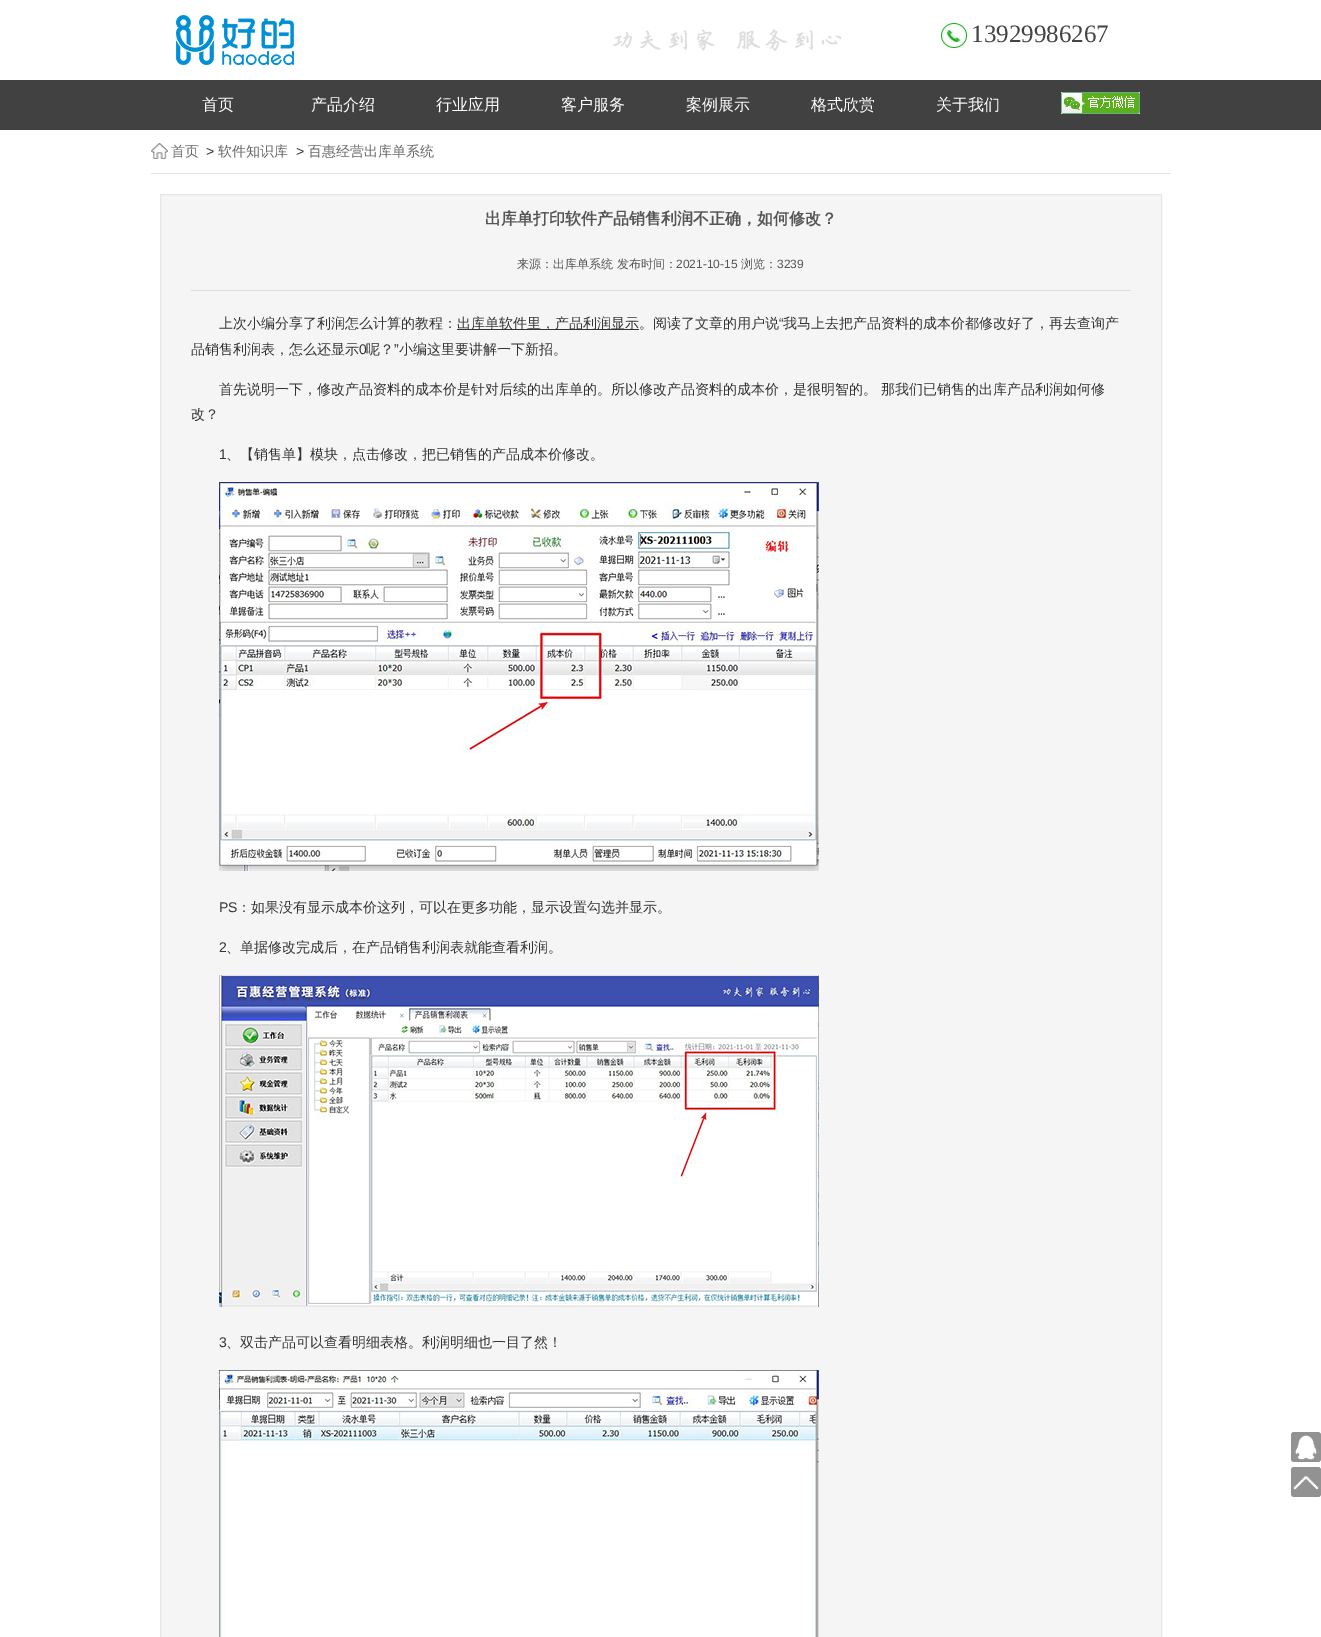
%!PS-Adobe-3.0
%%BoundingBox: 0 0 1321 1637
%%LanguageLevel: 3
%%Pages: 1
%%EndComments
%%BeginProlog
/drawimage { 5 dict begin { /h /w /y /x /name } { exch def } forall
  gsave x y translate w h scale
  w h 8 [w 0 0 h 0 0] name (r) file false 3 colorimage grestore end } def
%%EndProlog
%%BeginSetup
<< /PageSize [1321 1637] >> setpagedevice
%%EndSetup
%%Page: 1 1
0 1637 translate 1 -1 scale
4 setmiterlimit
1 setgray
0 0 1321 1637 rectfill
(images/1.raw) 176 15 118 50 drawimage
(images/2.raw) 613 29 229 22 drawimage
(images/3.raw) 941 23 26 25 drawimage
0.255 setgray
0 80 1321 50 rectfill
(images/4.raw) 1061 92 79 22 drawimage
(images/5.raw) 151 143 17 16 drawimage
0.898 setgray
151 173 1020 1 rectfill
0.961 setgray
newpath 160.5 194.5 moveto 1161.5 194.5 lineto 1161.5 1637.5 lineto 160.5 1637.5 lineto closepath gsave fill grestore
0.898 setgray
stroke
0.867 setgray
191 290 940 1 rectfill
0.2 setgray
457 329 182 1 rectfill
(images/6.raw) 219 482 600 389 drawimage
(images/7.raw) 219 975 600 332 drawimage
(images/8.raw) 219 1370 600 267 drawimage
(images/9.raw) 1291 1432 30 30 drawimage
(images/10.raw) 1291 1467 30 30 drawimage
/LiberationSerif-Regular [25 0 0 -25 0 0] selectfont
0.267 setgray
971 42 moveto (13929986267) show
/WenQuanYiZenHei-Medium [16 0 0 -16 0 0] selectfont
1 setgray
202 110 moveto (首页) show
311 110 moveto (产品介绍) show
436 110 moveto (行业应用) show
561 110 moveto (客户服务) show
686 110 moveto (案例展示) show
811 110 moveto (格式欣赏) show
936 110 moveto (关于我们) show
/WenQuanYiZenHei-Medium [14 0 0 -14 0 0] selectfont
0.4 setgray
171 156 moveto (首页) show
/LiberationSans-Regular [14 0 0 -14 0 0] selectfont
0.2 setgray
206 156 moveto (>) show
/WenQuanYiZenHei-Medium [14 0 0 -14 0 0] selectfont
0.4 setgray
218 156 moveto (软件知识库) show
/LiberationSans-Regular [14 0 0 -14 0 0] selectfont
0.2 setgray
296 156 moveto (>) show
/WenQuanYiZenHei-Medium [14 0 0 -14 0 0] selectfont
0.4 setgray
308 156 moveto (百惠经营出库单系统) show
/WenQuanYiZenHei-Bold [16 0 0 -16 0 0] selectfont
0.333 setgray
485 224 moveto (出库单打印软件产品销售利润不正确，如何修改？) show
/WenQuanYiZenHei-Medium [12 0 0 -12 0 0] selectfont
517 268 moveto (来源：出库单系统 发布时间：) show
/LiberationSans-Regular [12 0 0 -12 0 0] selectfont
676 268 moveto (2021-10-15) show
/WenQuanYiZenHei-Medium [12 0 0 -12 0 0] selectfont
741 268 moveto (浏览：) show
/LiberationSans-Regular [12 0 0 -12 0 0] selectfont
777 268 moveto (3239) show
/WenQuanYiZenHei-Medium [14 0 0 -14 0 0] selectfont
0.2 setgray
219 328 moveto (上次小编分享了利润怎么计算的教程：) show
457 328 moveto (出库单软件里，产品利润显示。阅读了文章的用户说) show
/LiberationSans-Regular [14 0 0 -14 0 0] selectfont
779 328 moveto (“) show
/WenQuanYiZenHei-Medium [14 0 0 -14 0 0] selectfont
783 328 moveto (我马上去把产品资料的成本价都修改好了，再去查询产) show
191 354 moveto (品销售利润表，怎么还显示) show
/LiberationSans-Regular [14 0 0 -14 0 0] selectfont
359 354 moveto (0) show
/WenQuanYiZenHei-Medium [14 0 0 -14 0 0] selectfont
366 354 moveto (呢？) show
/LiberationSans-Regular [14 0 0 -14 0 0] selectfont
394 354 moveto (”) show
/WenQuanYiZenHei-Medium [14 0 0 -14 0 0] selectfont
399 354 moveto (小编这里要讲解一下新招。) show
219 394 moveto (首先说明一下，修改产品资料的成本价是针对后续的出库单的。所以修改产品资料的成本价，是很明智的。 那我们已销售的出库产品利润如何修) show
191 419 moveto (改？) show
/LiberationSans-Regular [14 0 0 -14 0 0] selectfont
219 459 moveto (1) show
/WenQuanYiZenHei-Medium [14 0 0 -14 0 0] selectfont
226 459 moveto (、【销售单】模块，点击修改，把已销售的产品成本价修改。) show
/LiberationSans-Regular [14 0 0 -14 0 0] selectfont
219 912 moveto (PS) show
/WenQuanYiZenHei-Medium [14 0 0 -14 0 0] selectfont
237 912 moveto (：如果没有显示成本价这列，可以在更多功能，显示设置勾选并显示。) show
/LiberationSans-Regular [14 0 0 -14 0 0] selectfont
219 952 moveto (2) show
/WenQuanYiZenHei-Medium [14 0 0 -14 0 0] selectfont
226 952 moveto (、单据修改完成后，在产品销售利润表就能查看利润。) show
/LiberationSans-Regular [14 0 0 -14 0 0] selectfont
219 1347 moveto (3) show
/WenQuanYiZenHei-Medium [14 0 0 -14 0 0] selectfont
226 1347 moveto (、双击产品可以查看明细表格。利润明细也一目了然！) show
showpage
%%EOF
